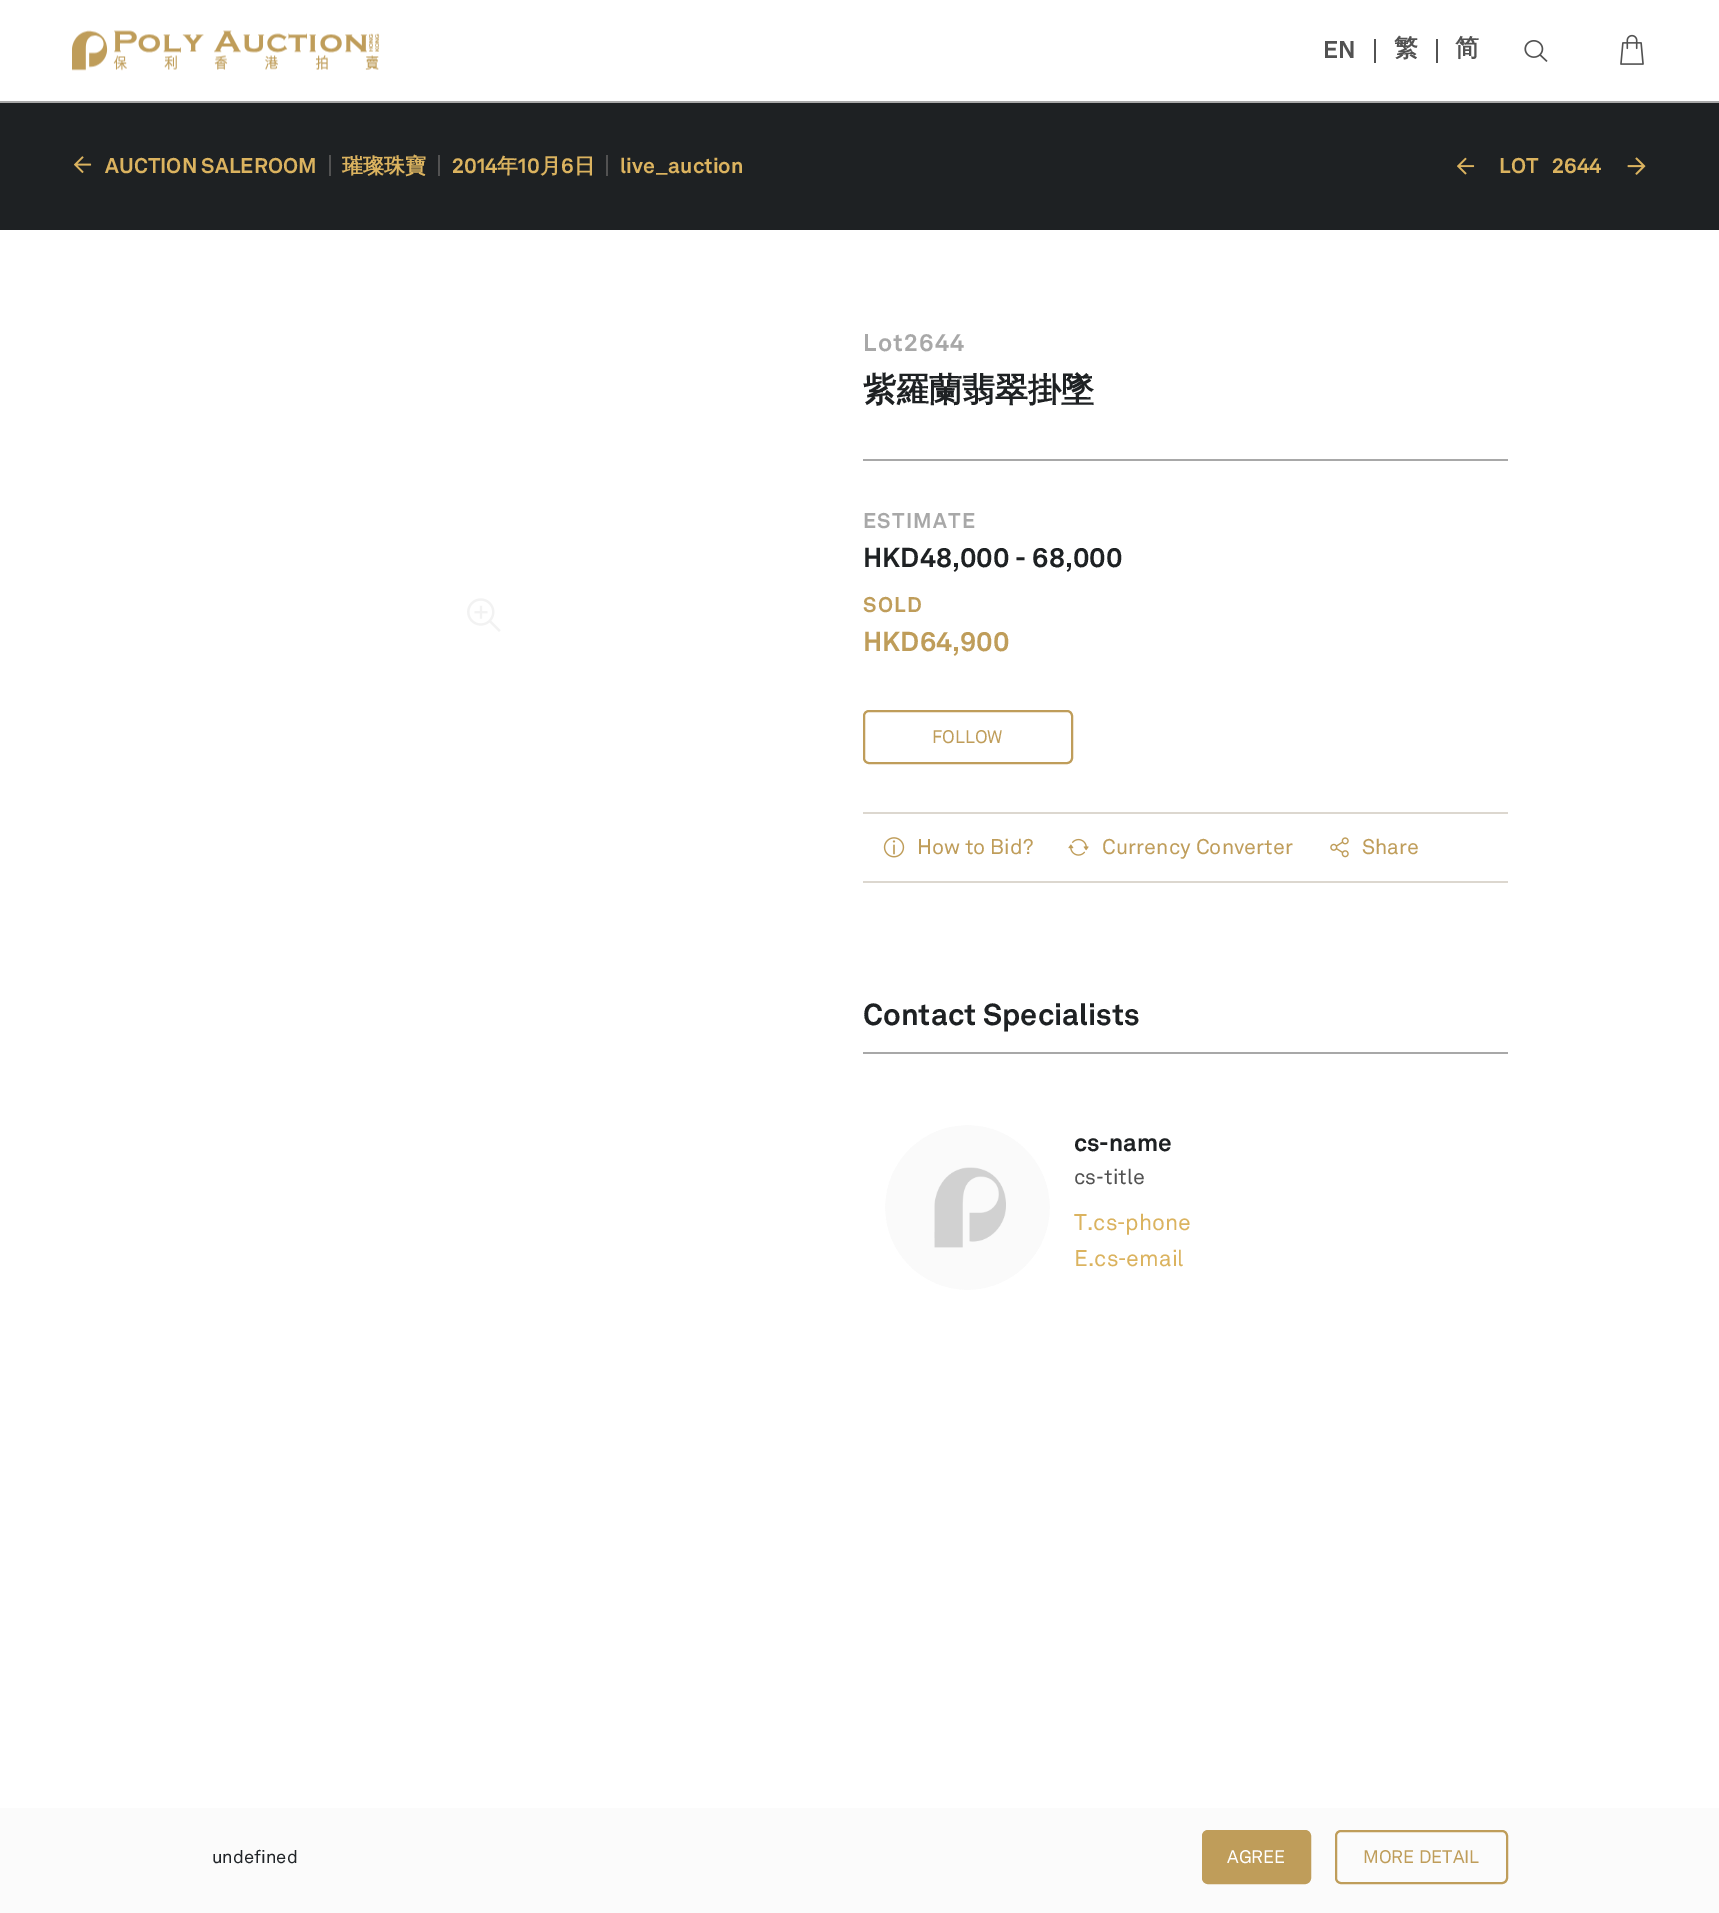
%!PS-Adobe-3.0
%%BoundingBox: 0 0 1719 1913
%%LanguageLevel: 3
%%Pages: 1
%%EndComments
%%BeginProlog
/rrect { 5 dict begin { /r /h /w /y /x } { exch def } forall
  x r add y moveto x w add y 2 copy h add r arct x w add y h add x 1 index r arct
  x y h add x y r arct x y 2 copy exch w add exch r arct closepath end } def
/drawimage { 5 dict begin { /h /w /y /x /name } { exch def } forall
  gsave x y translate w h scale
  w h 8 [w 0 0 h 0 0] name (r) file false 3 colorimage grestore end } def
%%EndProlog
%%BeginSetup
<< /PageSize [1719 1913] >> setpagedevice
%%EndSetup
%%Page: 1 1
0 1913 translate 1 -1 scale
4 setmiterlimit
1 setgray
0 0 1719 1913 rectfill
0.659 setgray
0 101 1719 2 rectfill
(images/1.raw) 72 30 308 41 drawimage
0.322 setgray
1374 39 2 24 rectfill
1436 39 2 24 rectfill
(images/2.raw) 1524 40 24 22 drawimage
(images/3.raw) 1620 34 24 31 drawimage
0.118 0.129 0.137 setrgbcolor
0 103 1719 127 rectfill
(images/4.raw) 74 156 18 17 drawimage
0.322 setgray
329 155 2 21 rectfill
438 155 2 21 rectfill
606 155 2 21 rectfill
(images/5.raw) 1457 157 18 18 drawimage
(images/6.raw) 1627 157 19 18 drawimage
(images/7.raw) 467 598 34 34 drawimage
0.659 setgray
863 459 645 2 rectfill
0.749 0.616 0.353 setrgbcolor
2 setlinewidth
864 711 208 52 5 rrect stroke
0.863 0.843 0.812 setrgbcolor
863 812 645 2 rectfill
863 881 645 2 rectfill
(images/8.raw) 883 837 22 21 drawimage
(images/9.raw) 1068 838 21 18 drawimage
(images/10.raw) 1330 837 19 21 drawimage
0.659 setgray
863 1052 645 2 rectfill
(images/11.raw) 885 1125 165 165 drawimage
0.984 setgray
0 1808 1719 105 rectfill
0.749 0.616 0.353 setrgbcolor
1203 1831 107 52 5 rrect gsave fill grestore
stroke
1336 1831 171 52 5 rrect stroke
/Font-Bold [24 0 0 -24 0 0] selectfont
0.322 setgray
1323 58 moveto (EN) show
/WenQuanYiZenHei-Bold [24 0 0 -24 0 0] selectfont
1394 56 moveto (繁) show
1455 56 moveto (简) show
/Font-Bold [21 0 0 -21 0 0] selectfont
0.859 0.702 0.373 setrgbcolor
105 173 moveto (AUCTION SALEROOM) show
/WenQuanYiZenHei-Bold [21 0 0 -21 0 0] selectfont
342 173 moveto (璀璨珠寶) show
/Font-Bold [21 0 0 -21 0 0] selectfont
452 173 moveto (2014) show
/WenQuanYiZenHei-Bold [21 0 0 -21 0 0] selectfont
497 173 moveto (年) show
/Font-Bold [21 0 0 -21 0 0] selectfont
518 173 moveto (10) show
/WenQuanYiZenHei-Bold [21 0 0 -21 0 0] selectfont
540 173 moveto (月) show
/Font-Bold [21 0 0 -21 0 0] selectfont
561 173 moveto (6) show
/WenQuanYiZenHei-Bold [21 0 0 -21 0 0] selectfont
574 173 moveto (日) show
/Font-Bold [21 0 0 -21 0 0] selectfont
620 173 moveto (live_auction) show
1499 173 moveto (LOT) show
1552 173 moveto (2644) show
/Font-Bold [24 0 0 -24 0 0] selectfont
0.659 setgray
863 351 moveto 1.25 0 (Lot2644) ashow
/WenQuanYiZenHei-Bold [33 0 0 -33 0 0] selectfont
0.118 0.129 0.137 setrgbcolor
863 401 moveto (紫羅蘭翡翠掛墜) show
/Font-Bold [21 0 0 -21 0 0] selectfont
0.659 setgray
863 528 moveto 1.25 0 (ESTIMATE) ashow
/Font-Bold [27 0 0 -27 0 0] selectfont
0.118 0.129 0.137 setrgbcolor
863 567 moveto (HKD48,000 - 68,000) show
/Font-Bold [21 0 0 -21 0 0] selectfont
0.749 0.616 0.353 setrgbcolor
863 612 moveto 1.25 0 (SOLD) ashow
/Font-Bold [27 0 0 -27 0 0] selectfont
863 651 moveto (HKD64,900) show
/Font-Regular [18 0 0 -18 0 0] selectfont
932 743 moveto (FOLLOW) show
/Font-Regular [21 0 0 -21 0 0] selectfont
917 854 moveto (How to Bid?) show
1102 854 moveto (Currency Converter) show
1362 854 moveto (Share) show
/Font-Bold [30 0 0 -30 0 0] selectfont
0.118 0.129 0.137 setrgbcolor
863 1025 moveto (Contact Specialists) show
/Font-Bold [24 0 0 -24 0 0] selectfont
1074 1151 moveto (cs-name) show
/Font-Regular [21 0 0 -21 0 0] selectfont
0.322 setgray
1074 1184 moveto (cs-title) show
/Font-Regular [22.5 0 0 -22.5 0 0] selectfont
0.859 0.702 0.373 setrgbcolor
1074 1230 moveto (T.cs-phone) show
1074 1266 moveto (E.cs-email) show
/Font-Regular [18 0 0 -18 0 0] selectfont
0.129 0.145 0.161 setrgbcolor
212 1863 moveto (undefined) show
1 setgray
1227 1863 moveto (AGREE) show
0.749 0.616 0.353 setrgbcolor
1363 1863 moveto (MORE DETAIL) show
showpage
%%EOF
